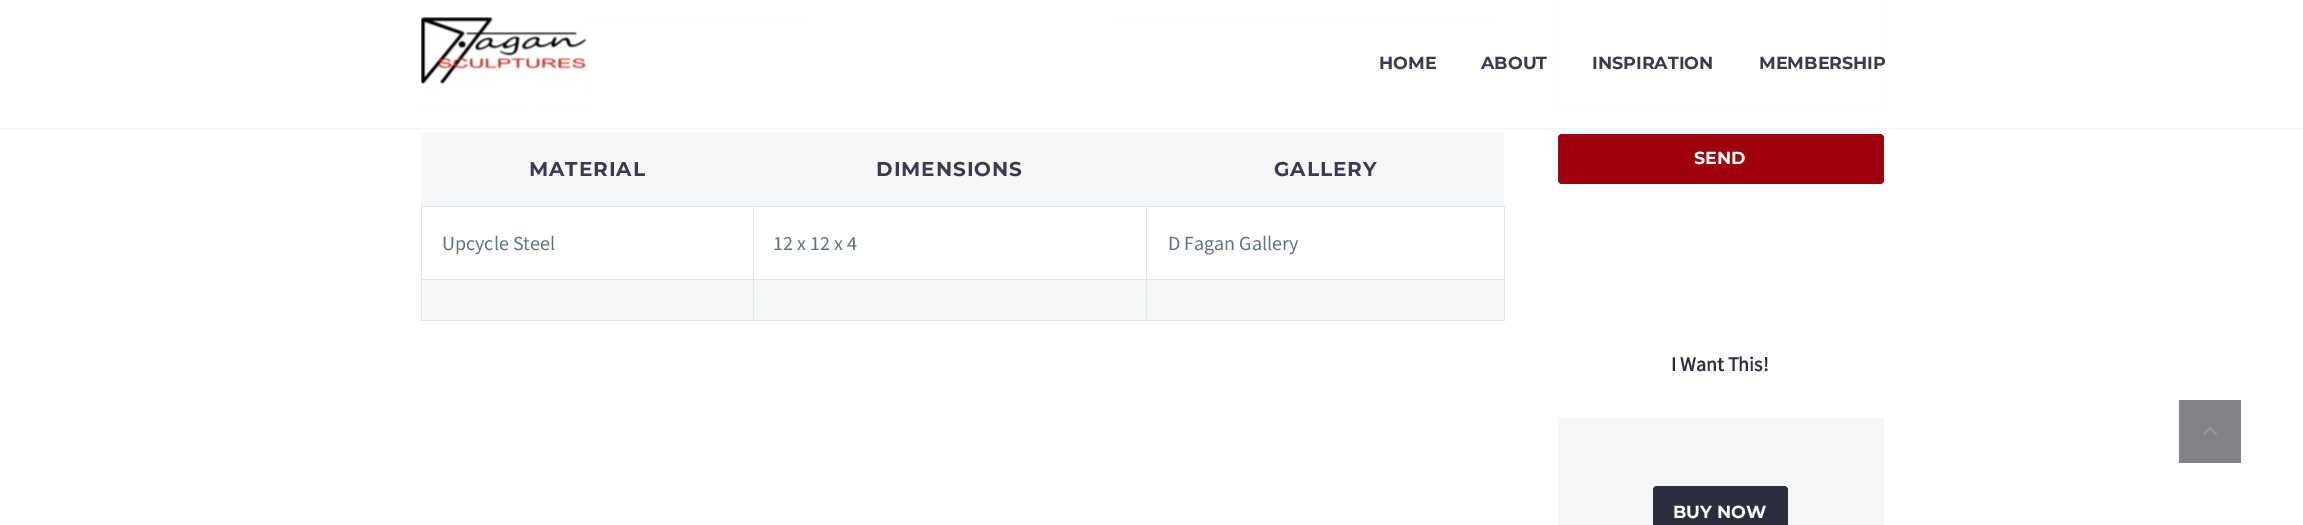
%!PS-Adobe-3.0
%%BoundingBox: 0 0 2303 525
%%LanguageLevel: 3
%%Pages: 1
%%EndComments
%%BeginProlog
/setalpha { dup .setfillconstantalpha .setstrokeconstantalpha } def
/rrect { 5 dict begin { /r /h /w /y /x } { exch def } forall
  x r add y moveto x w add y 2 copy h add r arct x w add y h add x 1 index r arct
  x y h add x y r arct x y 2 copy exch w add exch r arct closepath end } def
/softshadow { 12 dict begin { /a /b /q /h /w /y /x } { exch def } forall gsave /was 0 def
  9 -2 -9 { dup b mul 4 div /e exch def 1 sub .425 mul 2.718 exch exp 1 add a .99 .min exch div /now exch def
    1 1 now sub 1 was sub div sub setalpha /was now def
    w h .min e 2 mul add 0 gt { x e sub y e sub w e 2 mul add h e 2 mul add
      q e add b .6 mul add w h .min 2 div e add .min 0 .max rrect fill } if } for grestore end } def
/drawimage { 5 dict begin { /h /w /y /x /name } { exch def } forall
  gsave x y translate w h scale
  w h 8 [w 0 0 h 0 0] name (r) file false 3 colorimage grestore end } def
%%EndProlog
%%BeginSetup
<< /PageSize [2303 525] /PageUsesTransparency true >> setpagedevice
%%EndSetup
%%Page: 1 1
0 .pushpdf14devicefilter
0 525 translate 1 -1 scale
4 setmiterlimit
1 setgray
0 0 2303 525 rectfill
0.922 setgray
585 19 223 1 rectfill
1118 19 372 1 rectfill
0.957 0.965 0.969 setrgbcolor
1558.5 -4.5 325 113 3.5 rrect gsave fill grestore
0.875 0.898 0.91 setrgbcolor
stroke
gsave
newpath 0 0 moveto 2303 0 lineto 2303 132 lineto 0 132 lineto closepath 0 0 moveto 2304 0 lineto 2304 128 lineto 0 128 lineto closepath eoclip newpath
0.22 0.271 0.329 setrgbcolor
0 0 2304 128 0 1 0.2 softshadow
grestore
0.95 setalpha
1 setgray
0 0 2303 128 rectfill
1 setalpha
(images/1.raw) 421 17 166 93 drawimage
0.957 0.965 0.969 setrgbcolor
421 133 1083 73 rectfill
0.875 0.898 0.91 setrgbcolor
1146 206 359 1 rectfill
1146 279 359 1 rectfill
0.957 0.969 0.965 setrgbcolor
754 280 750 40 rectfill
0.875 0.898 0.91 setrgbcolor
1504 279 1 42 rectfill
1146 320 359 1 rectfill
1146 279 1 42 rectfill
753 279 395 1 rectfill
1146 206 1 74 rectfill
753 206 395 1 rectfill
753 320 395 1 rectfill
753 279 1 42 rectfill
421 279 333 1 rectfill
753 206 1 74 rectfill
421 206 333 1 rectfill
421 320 333 1 rectfill
421 279 1 42 rectfill
421 206 1 74 rectfill
1504 206 1 74 rectfill
0.957 0.969 0.965 setrgbcolor
422 280 331 40 rectfill
0.62 0 0.051 setrgbcolor
1558 134 326 50 4 rrect fill
0.957 0.965 0.969 setrgbcolor
1558 418 326 107 rectfill
0.173 0.18 0.239 setrgbcolor
1653 486 135 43 4 rrect fill
0.514 0.514 0.529 setrgbcolor
2179 400 62 63 rectfill
(images/2.raw) 2202 426 16 10 drawimage
/Montserrat-Bold [17.5 0 0 -17.5 0 0] selectfont
0.235 0.224 0.314 setrgbcolor
1379 69 moveto (HOME) show
1481 69 moveto (ABOUT) show
1592 69 moveto (INSPIRATION) show
1759 69 moveto (MEMBERSHIP) show
/Montserrat-Bold [20 0 0 -20 0 0] selectfont
529 176 moveto 1 0 (MATERIAL) ashow
876 176 moveto 1 0 (DIMENSIONS) ashow
1274 176 moveto 1 0 (GALLERY) ashow
/SourceSansPro-Regular [20 0 0 -20 0 0] selectfont
0.373 0.447 0.498 setrgbcolor
442 250 moveto (Upcycle Steel) show
773 250 moveto (12 x 12 x 4) show
1168 250 moveto (D Fagan Gallery) show
/Montserrat-Bold [17.5 0 0 -17.5 0 0] selectfont
1 setgray
1694 164 moveto (SEND) show
/SourceSansPro-Bold [20 0 0 -20 0 0] selectfont
0.173 0.18 0.239 setrgbcolor
1671 371 moveto (I Want This!) show
/Montserrat-Bold [17.5 0 0 -17.5 0 0] selectfont
1 setgray
1673 518 moveto (BUY NOW) show
.poppdf14devicefilter showpage
%%EOF
